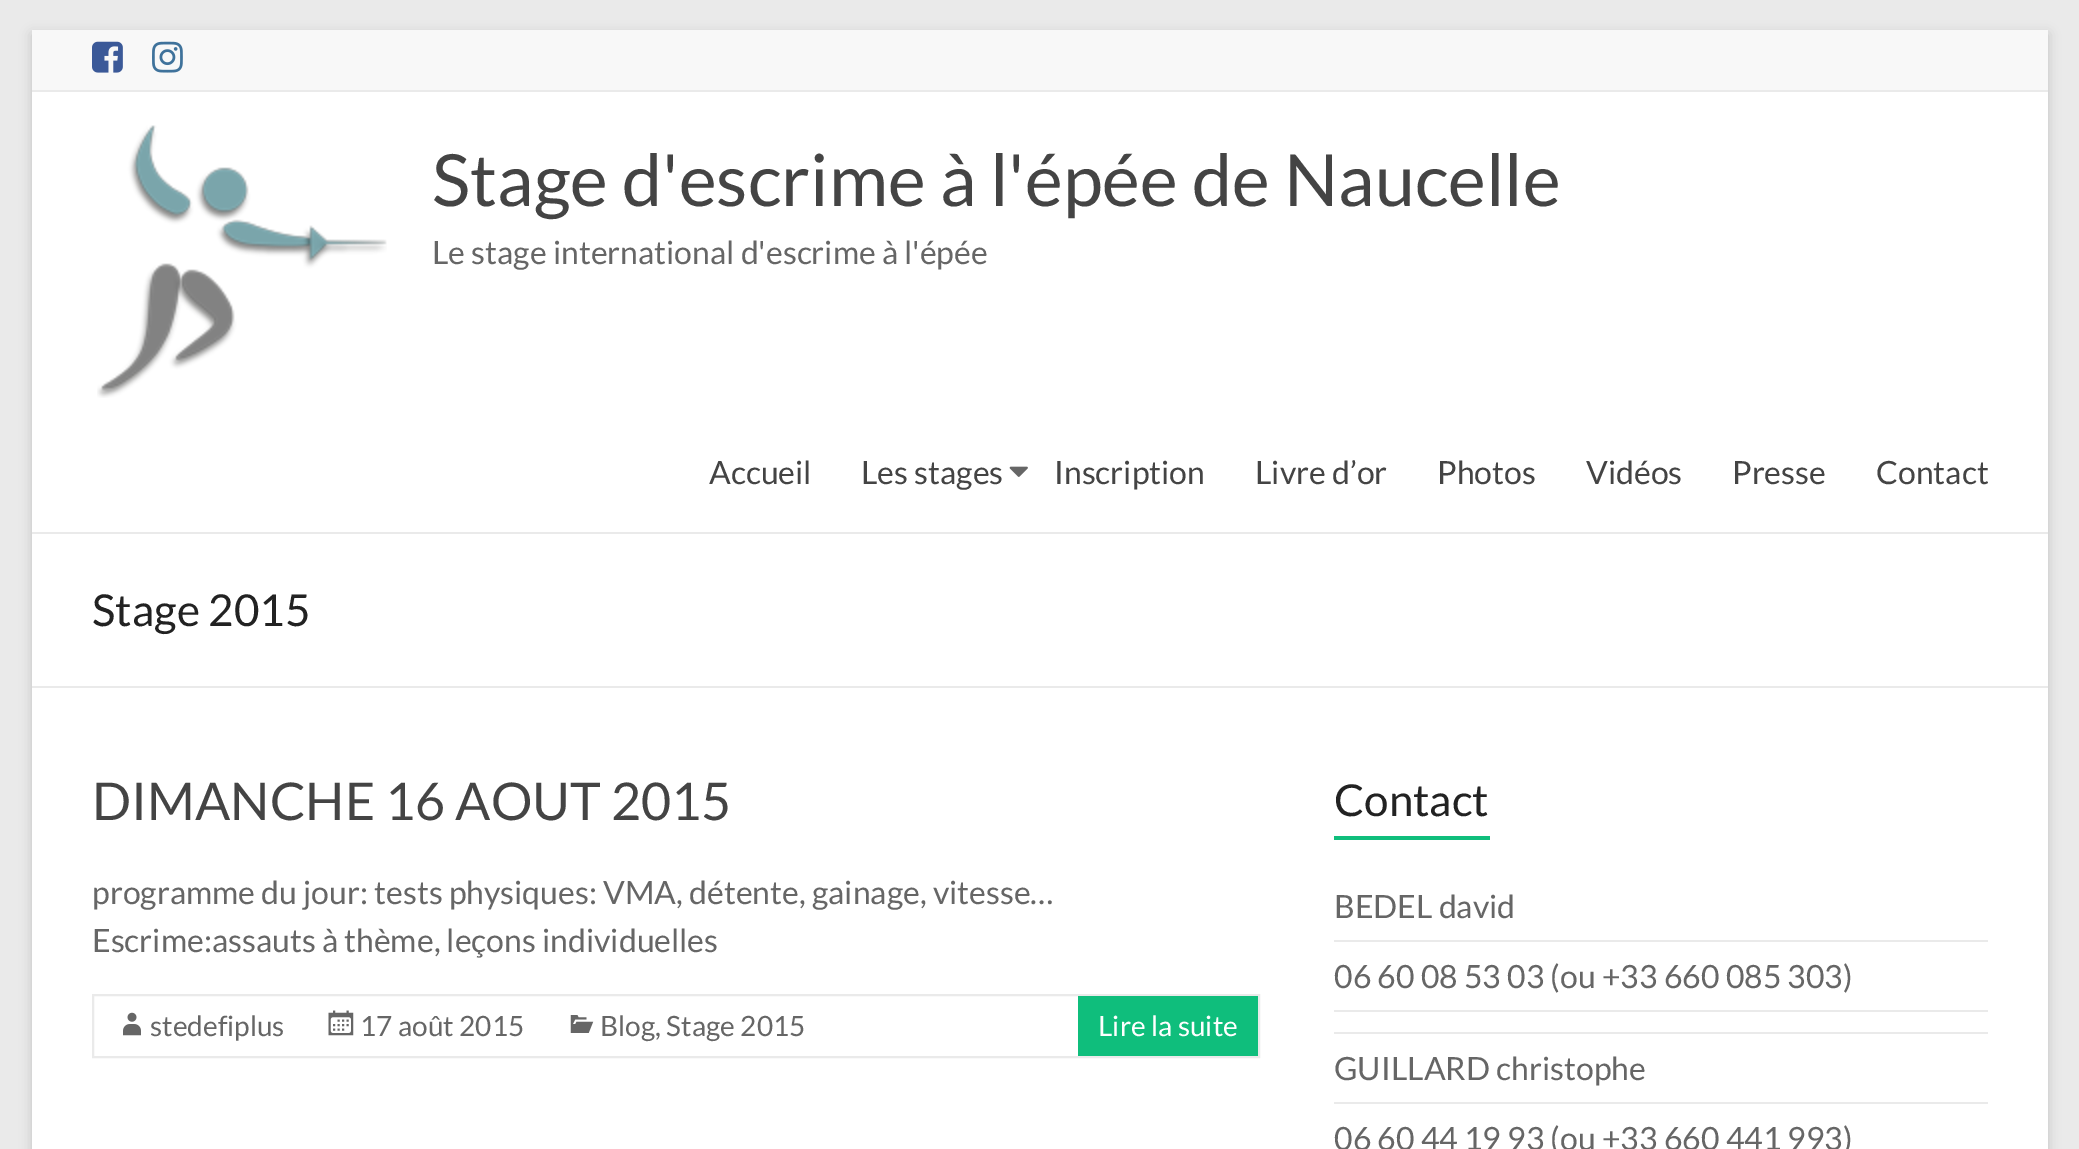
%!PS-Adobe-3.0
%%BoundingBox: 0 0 2079 1149
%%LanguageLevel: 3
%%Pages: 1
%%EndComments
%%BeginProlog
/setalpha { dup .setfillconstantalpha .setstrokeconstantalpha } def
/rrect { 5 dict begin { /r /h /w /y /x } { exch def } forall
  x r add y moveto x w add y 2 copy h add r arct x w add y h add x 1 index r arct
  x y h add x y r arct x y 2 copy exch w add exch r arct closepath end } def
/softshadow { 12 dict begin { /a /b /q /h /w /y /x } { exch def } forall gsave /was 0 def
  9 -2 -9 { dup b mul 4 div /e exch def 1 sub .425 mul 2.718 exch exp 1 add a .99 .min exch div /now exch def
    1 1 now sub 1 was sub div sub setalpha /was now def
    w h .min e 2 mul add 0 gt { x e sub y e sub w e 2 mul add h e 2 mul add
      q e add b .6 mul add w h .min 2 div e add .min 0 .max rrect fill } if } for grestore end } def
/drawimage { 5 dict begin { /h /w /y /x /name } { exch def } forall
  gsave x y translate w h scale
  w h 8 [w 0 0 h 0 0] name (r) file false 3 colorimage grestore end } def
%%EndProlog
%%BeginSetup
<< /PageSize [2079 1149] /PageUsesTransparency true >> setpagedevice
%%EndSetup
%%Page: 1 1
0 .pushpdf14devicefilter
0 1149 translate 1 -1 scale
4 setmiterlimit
0.918 setgray
0 0 2079 1149 rectfill
0.392 setgray
32 34 2016 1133 0 6 0.3 softshadow
1 setgray
32 92 2016 1057 rectfill
0.973 setgray
32 30 2016 60 rectfill
0.918 setgray
32 90 2016 2 rectfill
(images/1.raw) 92 41 31 32 drawimage
(images/2.raw) 152 41 31 32 drawimage
32 532 2016 2 rectfill
(images/3.raw) 97 125 290 273 drawimage
(images/4.raw) 1009 466 19 11 drawimage
32 686 2016 2 rectfill
2 setlinewidth
93 995 1166 62 rectstroke
(images/5.raw) 123 1012 18 24 drawimage
(images/6.raw) 328 1010 26 26 drawimage
(images/7.raw) 570 1015 24 18 drawimage
0.059 0.745 0.486 setrgbcolor
1078 996 180 60 rectfill
1334 836 156 4 rectfill
0.918 setgray
1334 940 654 2 rectfill
1334 1010 654 2 rectfill
1334 1032 654 2 rectfill
1334 1102 654 2 rectfill
/Lato-Regular [72 0 0 -72 0 0] selectfont
0.267 setgray
432 206 moveto (Stage d'escrime à l'épée de Naucelle) show
/Lato-Regular [32 0 0 -32 0 0] selectfont
0.4 setgray
432 264 moveto (Le stage international d'escrime à l'épée) show
0.267 setgray
709 484 moveto (Accueil) show
861 484 moveto (Les stages) show
1054 484 moveto (Inscription) show
1255 484 moveto (Livre d’or) show
1437 484 moveto (Photos) show
1586 484 moveto (Vidéos) show
1732 484 moveto (Presse) show
1876 484 moveto (Contact) show
/Lato-Regular [44 0 0 -44 0 0] selectfont
0.133 setgray
92 626 moveto (Stage 2015) show
/Lato-Regular [52 0 0 -52 0 0] selectfont
0.267 setgray
92 820 moveto (DIMANCHE 16 AOUT 2015) show
/Lato-Regular [32 0 0 -32 0 0] selectfont
0.4 setgray
92 904 moveto (programme du jour: tests physiques: VMA, détente, gainage, vitesse…) show
92 952 moveto (Escrime:assauts à thème, leçons individuelles) show
/Lato-Regular [28 0 0 -28 0 0] selectfont
150 1036 moveto (stedefiplus) show
360 1036 moveto (17 août 2015) show
600 1036 moveto (Blog, Stage 2015) show
1 setgray
1098 1036 moveto (Lire la suite) show
/Lato-Regular [44 0 0 -44 0 0] selectfont
0.133 setgray
1334 816 moveto (Contact) show
/Lato-Regular [32 0 0 -32 0 0] selectfont
0.4 setgray
1334 918 moveto (BEDEL david) show
1334 988 moveto (06 60 08 53 03 \(ou +33 660 085 303\)) show
1334 1080 moveto (GUILLARD christophe) show
1334 1150 moveto (06 60 44 19 93 \(ou +33 660 441 993\)) show
.poppdf14devicefilter showpage
%%EOF
